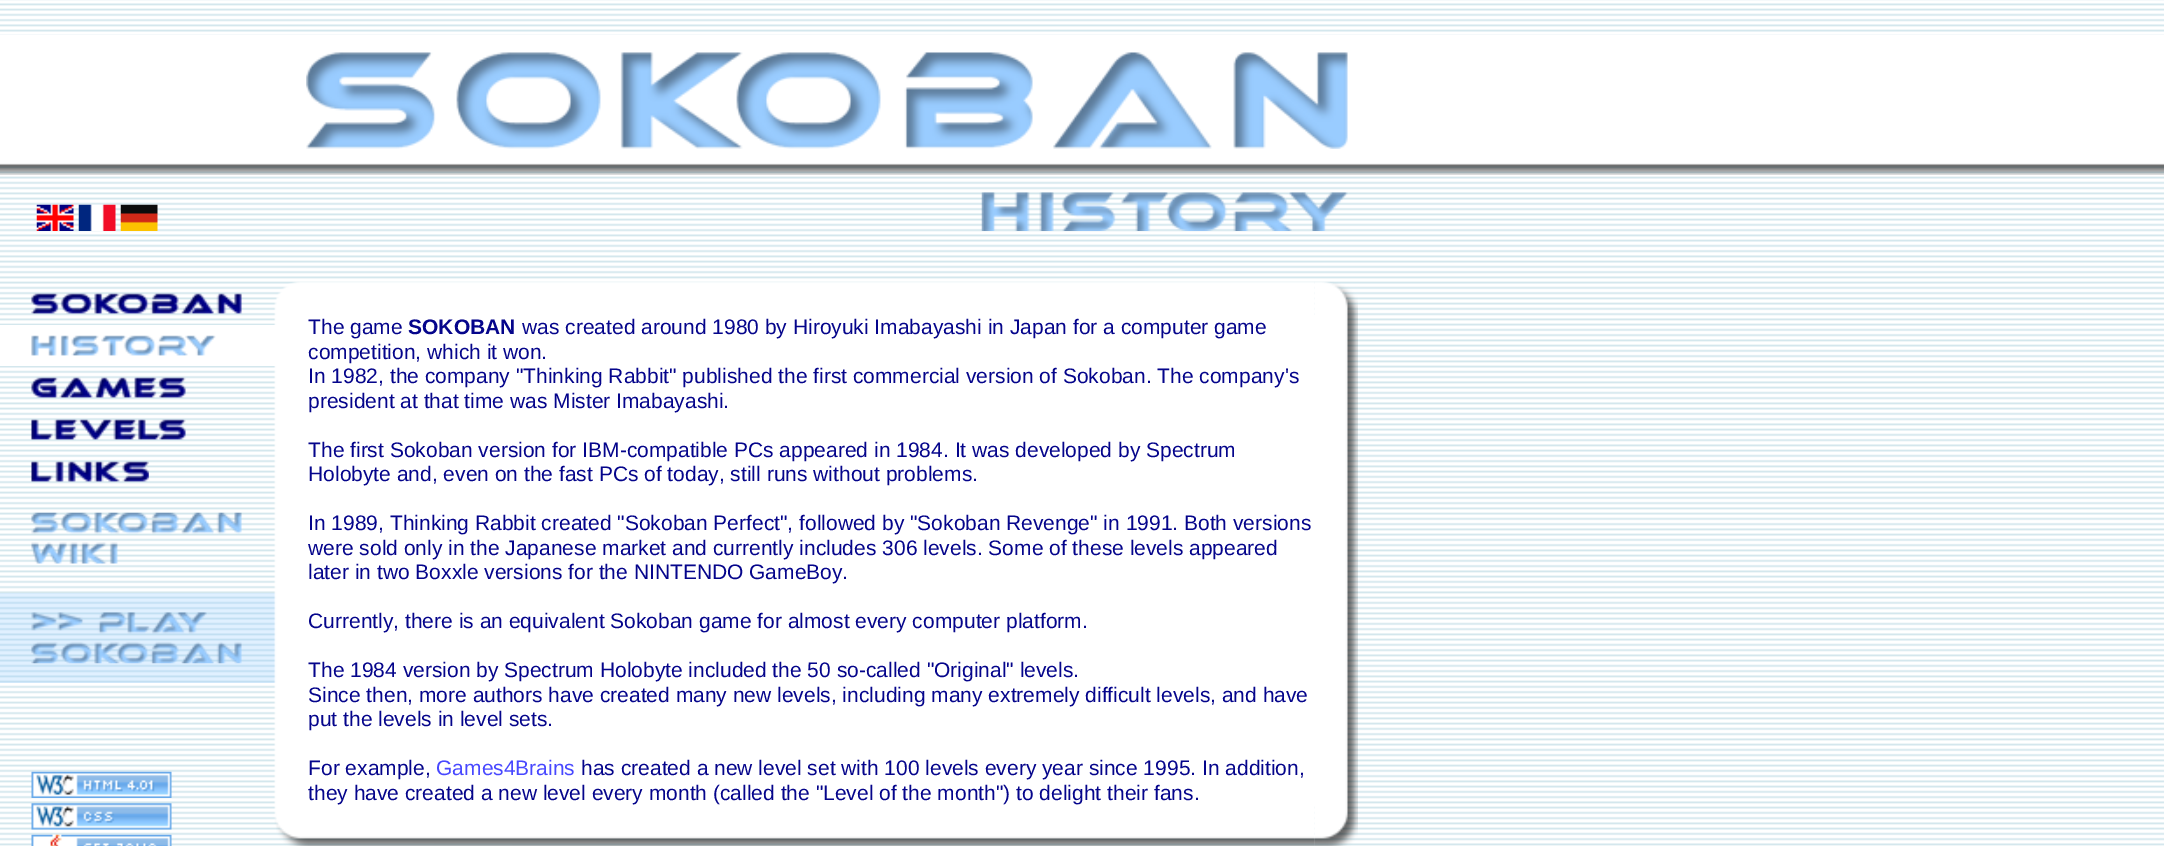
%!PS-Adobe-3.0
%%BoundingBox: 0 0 2164 846
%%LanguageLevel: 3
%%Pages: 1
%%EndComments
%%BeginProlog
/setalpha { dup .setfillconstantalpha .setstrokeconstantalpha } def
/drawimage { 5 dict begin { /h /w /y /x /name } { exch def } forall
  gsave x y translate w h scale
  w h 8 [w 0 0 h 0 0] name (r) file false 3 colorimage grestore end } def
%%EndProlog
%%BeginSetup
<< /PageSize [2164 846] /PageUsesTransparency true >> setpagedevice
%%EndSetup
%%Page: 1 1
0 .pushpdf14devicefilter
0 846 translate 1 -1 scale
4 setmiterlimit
1 setgray
0 0 2164 846 rectfill
(images/1.raw) 0 0 2164 846 drawimage
0 35 2164 131 rectfill
(images/2.raw) 306 52 1042 97 drawimage
(images/3.raw) 0 163 2164 12 drawimage
(images/4.raw) 36 204 38 27 drawimage
(images/5.raw) 78 204 38 27 drawimage
(images/6.raw) 120 204 38 27 drawimage
(images/7.raw) 981 192 367 39 drawimage
(images/8.raw) 31 293 211 21 drawimage
0 325 277 41 rectfill
(images/9.raw) 31 335 185 21 drawimage
(images/10.raw) 31 377 155 21 drawimage
(images/11.raw) 31 419 155 21 drawimage
(images/12.raw) 31 461 118 21 drawimage
(images/13.raw) 31 512 211 52 drawimage
0.3 setalpha
0.596 0.804 1 setrgbcolor
0 593 277 90 rectfill
1 setalpha
(images/14.raw) 31 612 211 52 drawimage
(images/15.raw) 31 771 141 27 drawimage
(images/16.raw) 31 803 141 27 drawimage
(images/17.raw) 31 834 141 12 drawimage
(images/18.raw) 274 281 34 34 drawimage
(images/19.raw) 308 281 1007 34 drawimage
(images/20.raw) 1314 281 44 34 drawimage
(images/21.raw) 274 315 34 489 drawimage
1 setgray
308 315 1007 489 rectfill
(images/22.raw) 1315 315 43 490 drawimage
(images/23.raw) 274 806 34 40 drawimage
(images/24.raw) 308 806 1007 40 drawimage
(images/25.raw) 1314 805 44 41 drawimage
/LiberationSans-Regular [21 0 0 -21 0 0] selectfont
0.02 0.02 0.545 setrgbcolor
308 334 moveto (The game) show
/LiberationSans-Bold [21 0 0 -21 0 0] selectfont
408 334 moveto (SOKOBAN) show
/LiberationSans-Regular [21 0 0 -21 0 0] selectfont
522 334 moveto (was created around 1980 by Hiroyuki Imabayashi in Japan for a computer game) show
308 359 moveto (competition, which it won.) show
308 383 moveto (In 1982, the company "Thinking Rabbit" published the first commercial version of Sokoban. The company's) show
308 408 moveto (president at that time was Mister Imabayashi.) show
308 457 moveto (The first Sokoban version for IBM-compatible PCs appeared in 1984. It was developed by Spectrum) show
308 481 moveto (Holobyte and, even on the fast PCs of today, still runs without problems.) show
308 530 moveto (In 1989, Thinking Rabbit created "Sokoban Perfect", followed by "Sokoban Revenge" in 1991. Both versions) show
308 555 moveto (were sold only in the Japanese market and currently includes 306 levels. Some of these levels appeared) show
308 579 moveto (later in two Boxxle versions for the NINTENDO GameBoy.) show
308 628 moveto (Currently, there is an equivalent Sokoban game for almost every computer platform.) show
308 677 moveto (The 1984 version by Spectrum Holobyte included the 50 so-called "Original" levels.) show
308 702 moveto (Since then, more authors have created many new levels, including many extremely difficult levels, and have) show
308 726 moveto (put the levels in level sets.) show
308 775 moveto (For example,) show
0.282 0.282 1 setrgbcolor
436 775 moveto (Games4Brains) show
0.02 0.02 0.545 setrgbcolor
581 775 moveto (has created a new level set with 100 levels every year since 1995. In addition,) show
308 800 moveto (they have created a new level every month \(called the "Level of the month"\) to delight their fans.) show
.poppdf14devicefilter showpage
%%EOF
